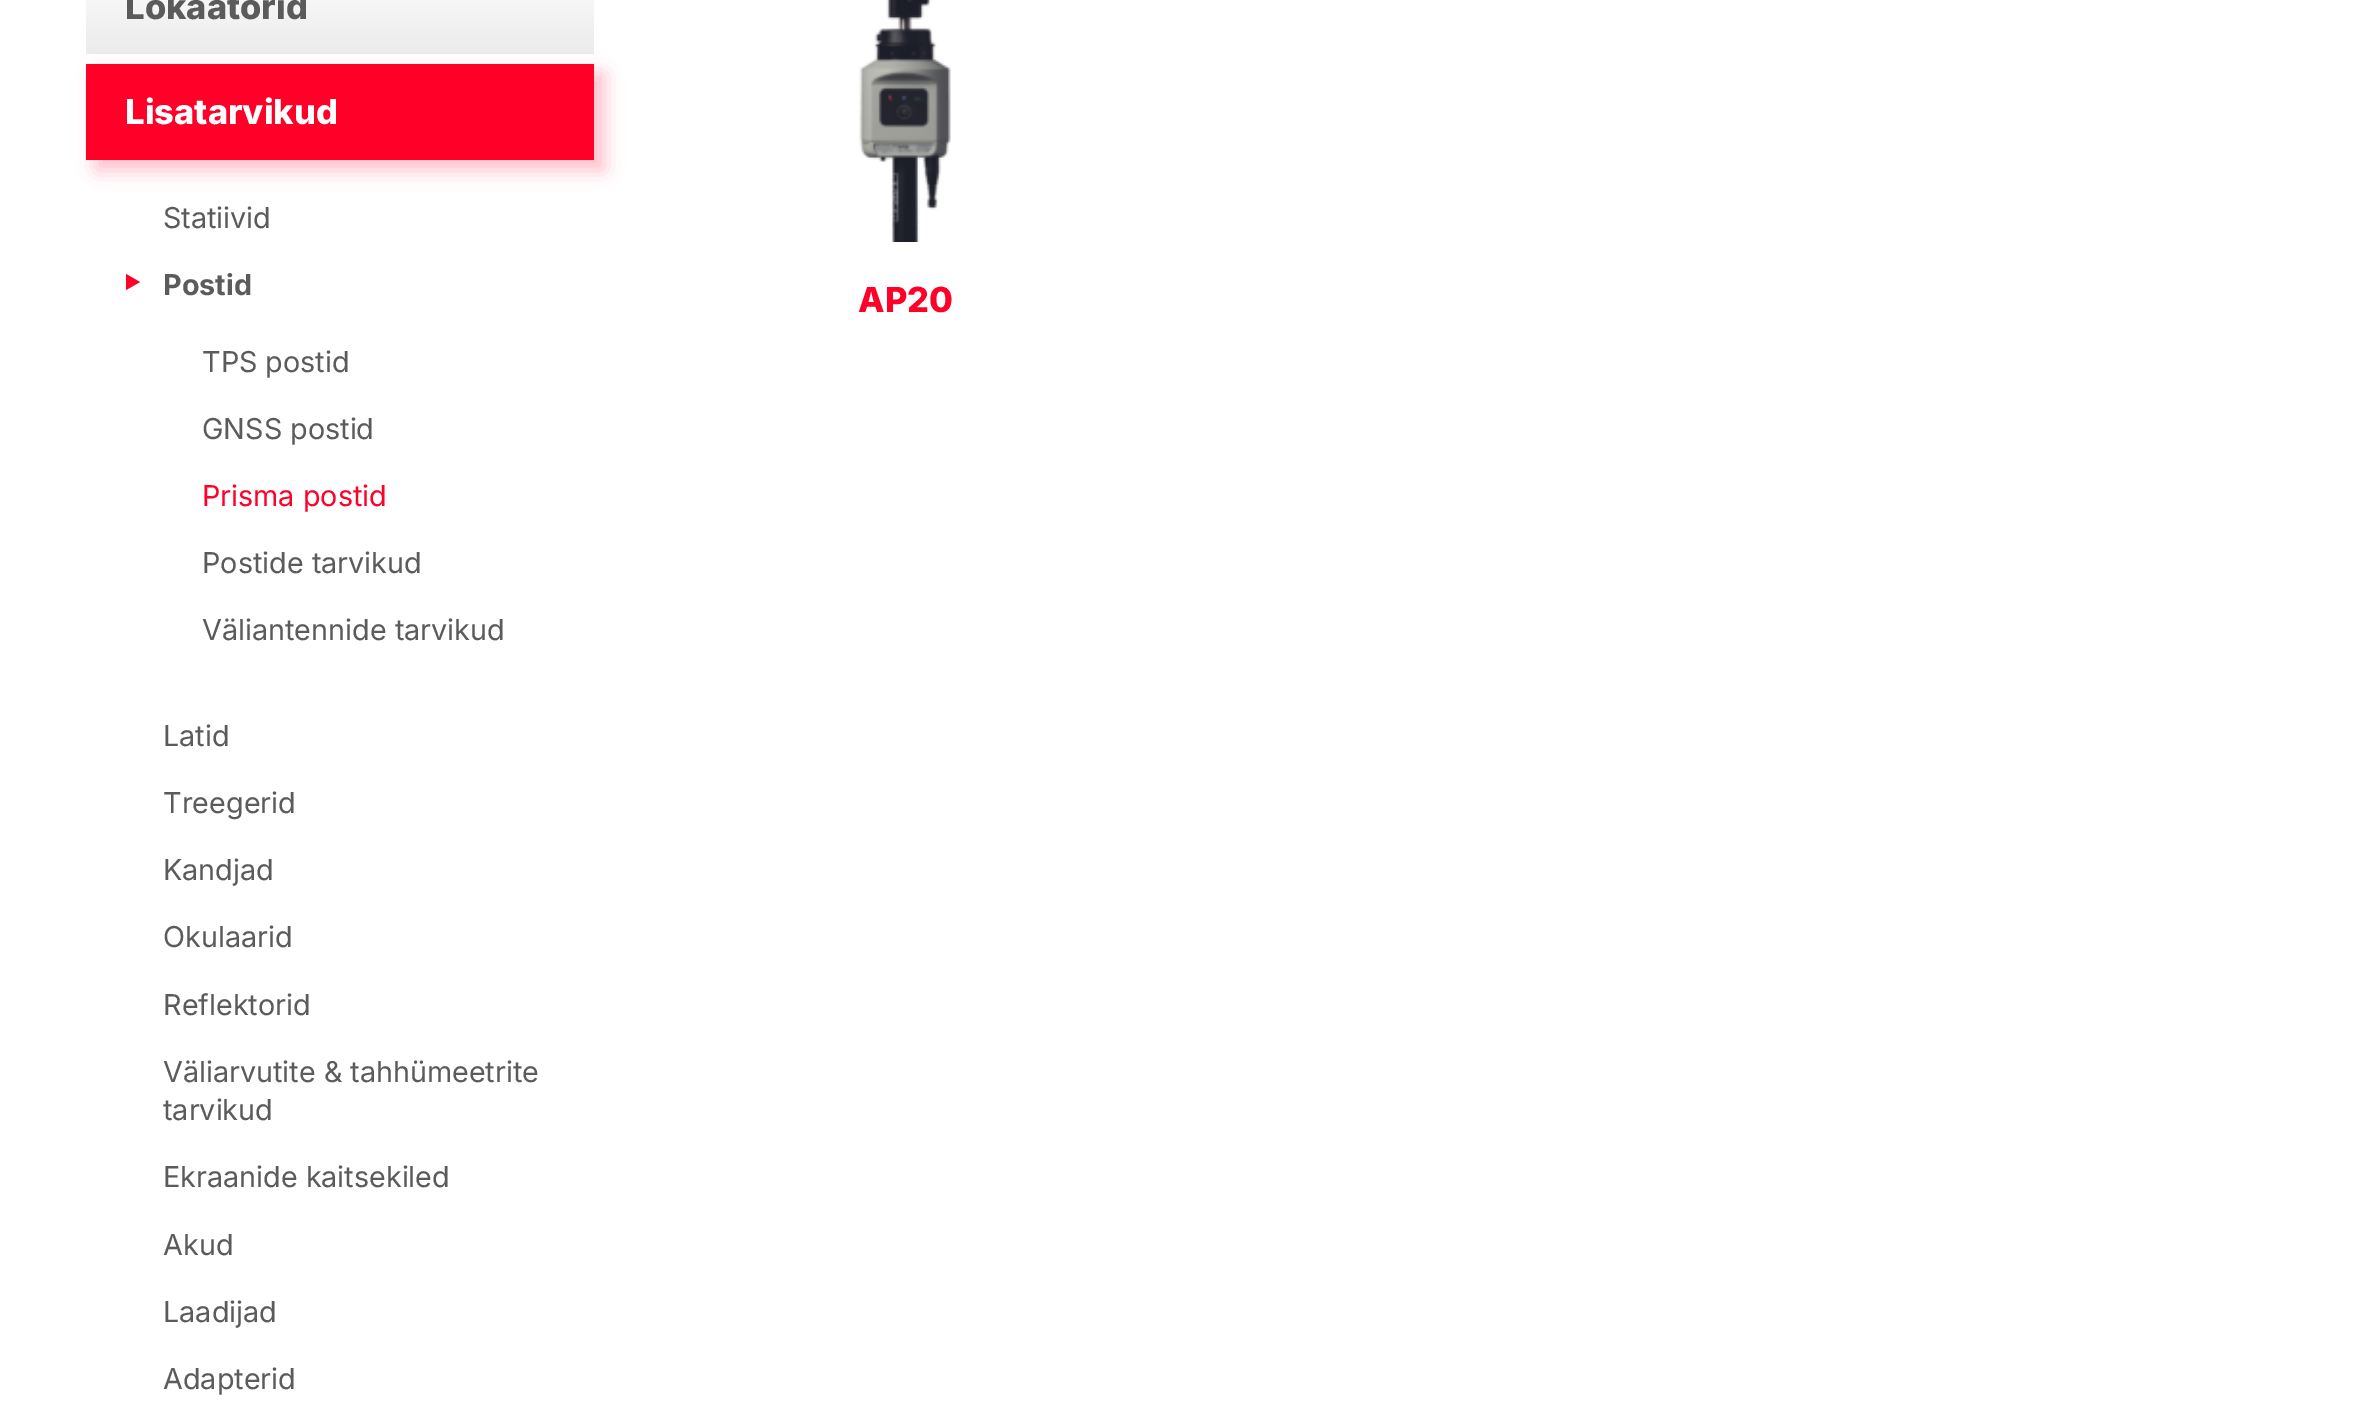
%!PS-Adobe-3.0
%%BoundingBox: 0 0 2376 1406
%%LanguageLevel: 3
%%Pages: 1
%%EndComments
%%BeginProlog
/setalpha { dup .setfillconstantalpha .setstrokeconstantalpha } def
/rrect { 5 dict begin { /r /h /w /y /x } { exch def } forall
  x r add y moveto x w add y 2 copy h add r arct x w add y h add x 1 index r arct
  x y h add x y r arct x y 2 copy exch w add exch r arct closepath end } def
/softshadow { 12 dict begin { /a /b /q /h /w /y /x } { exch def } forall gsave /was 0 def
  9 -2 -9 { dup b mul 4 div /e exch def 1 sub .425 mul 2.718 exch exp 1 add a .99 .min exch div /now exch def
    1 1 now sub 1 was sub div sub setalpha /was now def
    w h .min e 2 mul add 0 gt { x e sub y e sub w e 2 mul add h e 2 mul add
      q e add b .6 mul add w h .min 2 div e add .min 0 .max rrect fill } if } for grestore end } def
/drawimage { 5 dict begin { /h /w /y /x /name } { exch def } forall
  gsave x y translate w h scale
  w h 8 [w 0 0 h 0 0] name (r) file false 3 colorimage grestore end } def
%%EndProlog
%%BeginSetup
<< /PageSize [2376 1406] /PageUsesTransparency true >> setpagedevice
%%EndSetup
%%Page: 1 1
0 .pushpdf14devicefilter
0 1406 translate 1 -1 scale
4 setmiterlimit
1 setgray
0 0 2376 1406 rectfill
gsave newpath 86 0 moveto 594 0 lineto 594 54 lineto 86 54 lineto closepath clip newpath
<< /ShadingType 2 /ColorSpace /DeviceRGB /Coords [340 -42 340 246] /Extend [true true] /Function << /FunctionType 3 /Domain [0 1] /Functions [<< /FunctionType 2 /Domain [0 1] /C0 [1 1 1] /C1 [0.925 0.925 0.925] /N 1 >> << /FunctionType 2 /Domain [0 1] /C0 [0.925 0.925 0.925] /C1 [1 0 0.161] /N 1 >> << /FunctionType 2 /Domain [0 1] /C0 [1 0 0.161] /C1 [1 0 0.161] /N 1 >>] /Bounds [0.33 0.67] /Encode [0 1 0 1 0 1] >> >> shfill grestore
1 0 0.161 setrgbcolor
96 74 508 96 0 9.5 0.25 softshadow
gsave newpath 86 64 moveto 594 64 lineto 594 160 lineto 86 160 lineto closepath clip newpath
<< /ShadingType 2 /ColorSpace /DeviceRGB /Coords [340 -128 340 160] /Extend [true true] /Function << /FunctionType 3 /Domain [0 1] /Functions [<< /FunctionType 2 /Domain [0 1] /C0 [1 1 1] /C1 [0.925 0.925 0.925] /N 1 >> << /FunctionType 2 /Domain [0 1] /C0 [0.925 0.925 0.925] /C1 [1 0 0.161] /N 1 >> << /FunctionType 2 /Domain [0 1] /C0 [1 0 0.161] /C1 [1 0 0.161] /N 1 >>] /Bounds [0.33 0.67] /Encode [0 1 0 1 0 1] >> >> shfill grestore
newpath 126 290 moveto 126 274 lineto 140 282 lineto closepath fill
(images/1.raw) 859 0 92 242 drawimage
/Inter-ExtraBold [34.5 0 0 -34.5 0 0] selectfont
0.357 setgray
125 19 moveto (Lokaatorid) show
1 setgray
125 124 moveto (Lisatarvikud) show
/Inter-Regular [28.75 0 0 -28.75 0 0] selectfont
0.357 setgray
163 228 moveto (Statiivid) show
/Inter-Bold [28.75 0 0 -28.75 0 0] selectfont
163 295 moveto (Postid) show
/Inter-Regular [28.75 0 0 -28.75 0 0] selectfont
202 372 moveto (TPS postid) show
202 439 moveto (GNSS postid) show
1 0 0.161 setrgbcolor
202 506 moveto (Prisma postid) show
0.357 setgray
202 573 moveto (Postide tarvikud) show
202 640 moveto (Väliantennide tarvikud) show
163 746 moveto (Latid) show
163 813 moveto (Treegerid) show
163 880 moveto (Kandjad) show
163 947 moveto (Okulaarid) show
163 1015 moveto (Reflektorid) show
163 1082 moveto (Väliarvutite & tahhümeetrite) show
163 1120 moveto (tarvikud) show
163 1187 moveto (Ekraanide kaitsekiled) show
163 1255 moveto (Akud) show
163 1322 moveto (Laadijad) show
163 1389 moveto (Adapterid) show
/Inter-ExtraBold [34.5 0 0 -34.5 0 0] selectfont
1 0 0.161 setrgbcolor
858 312 moveto (AP20) show
.poppdf14devicefilter showpage
%%EOF
